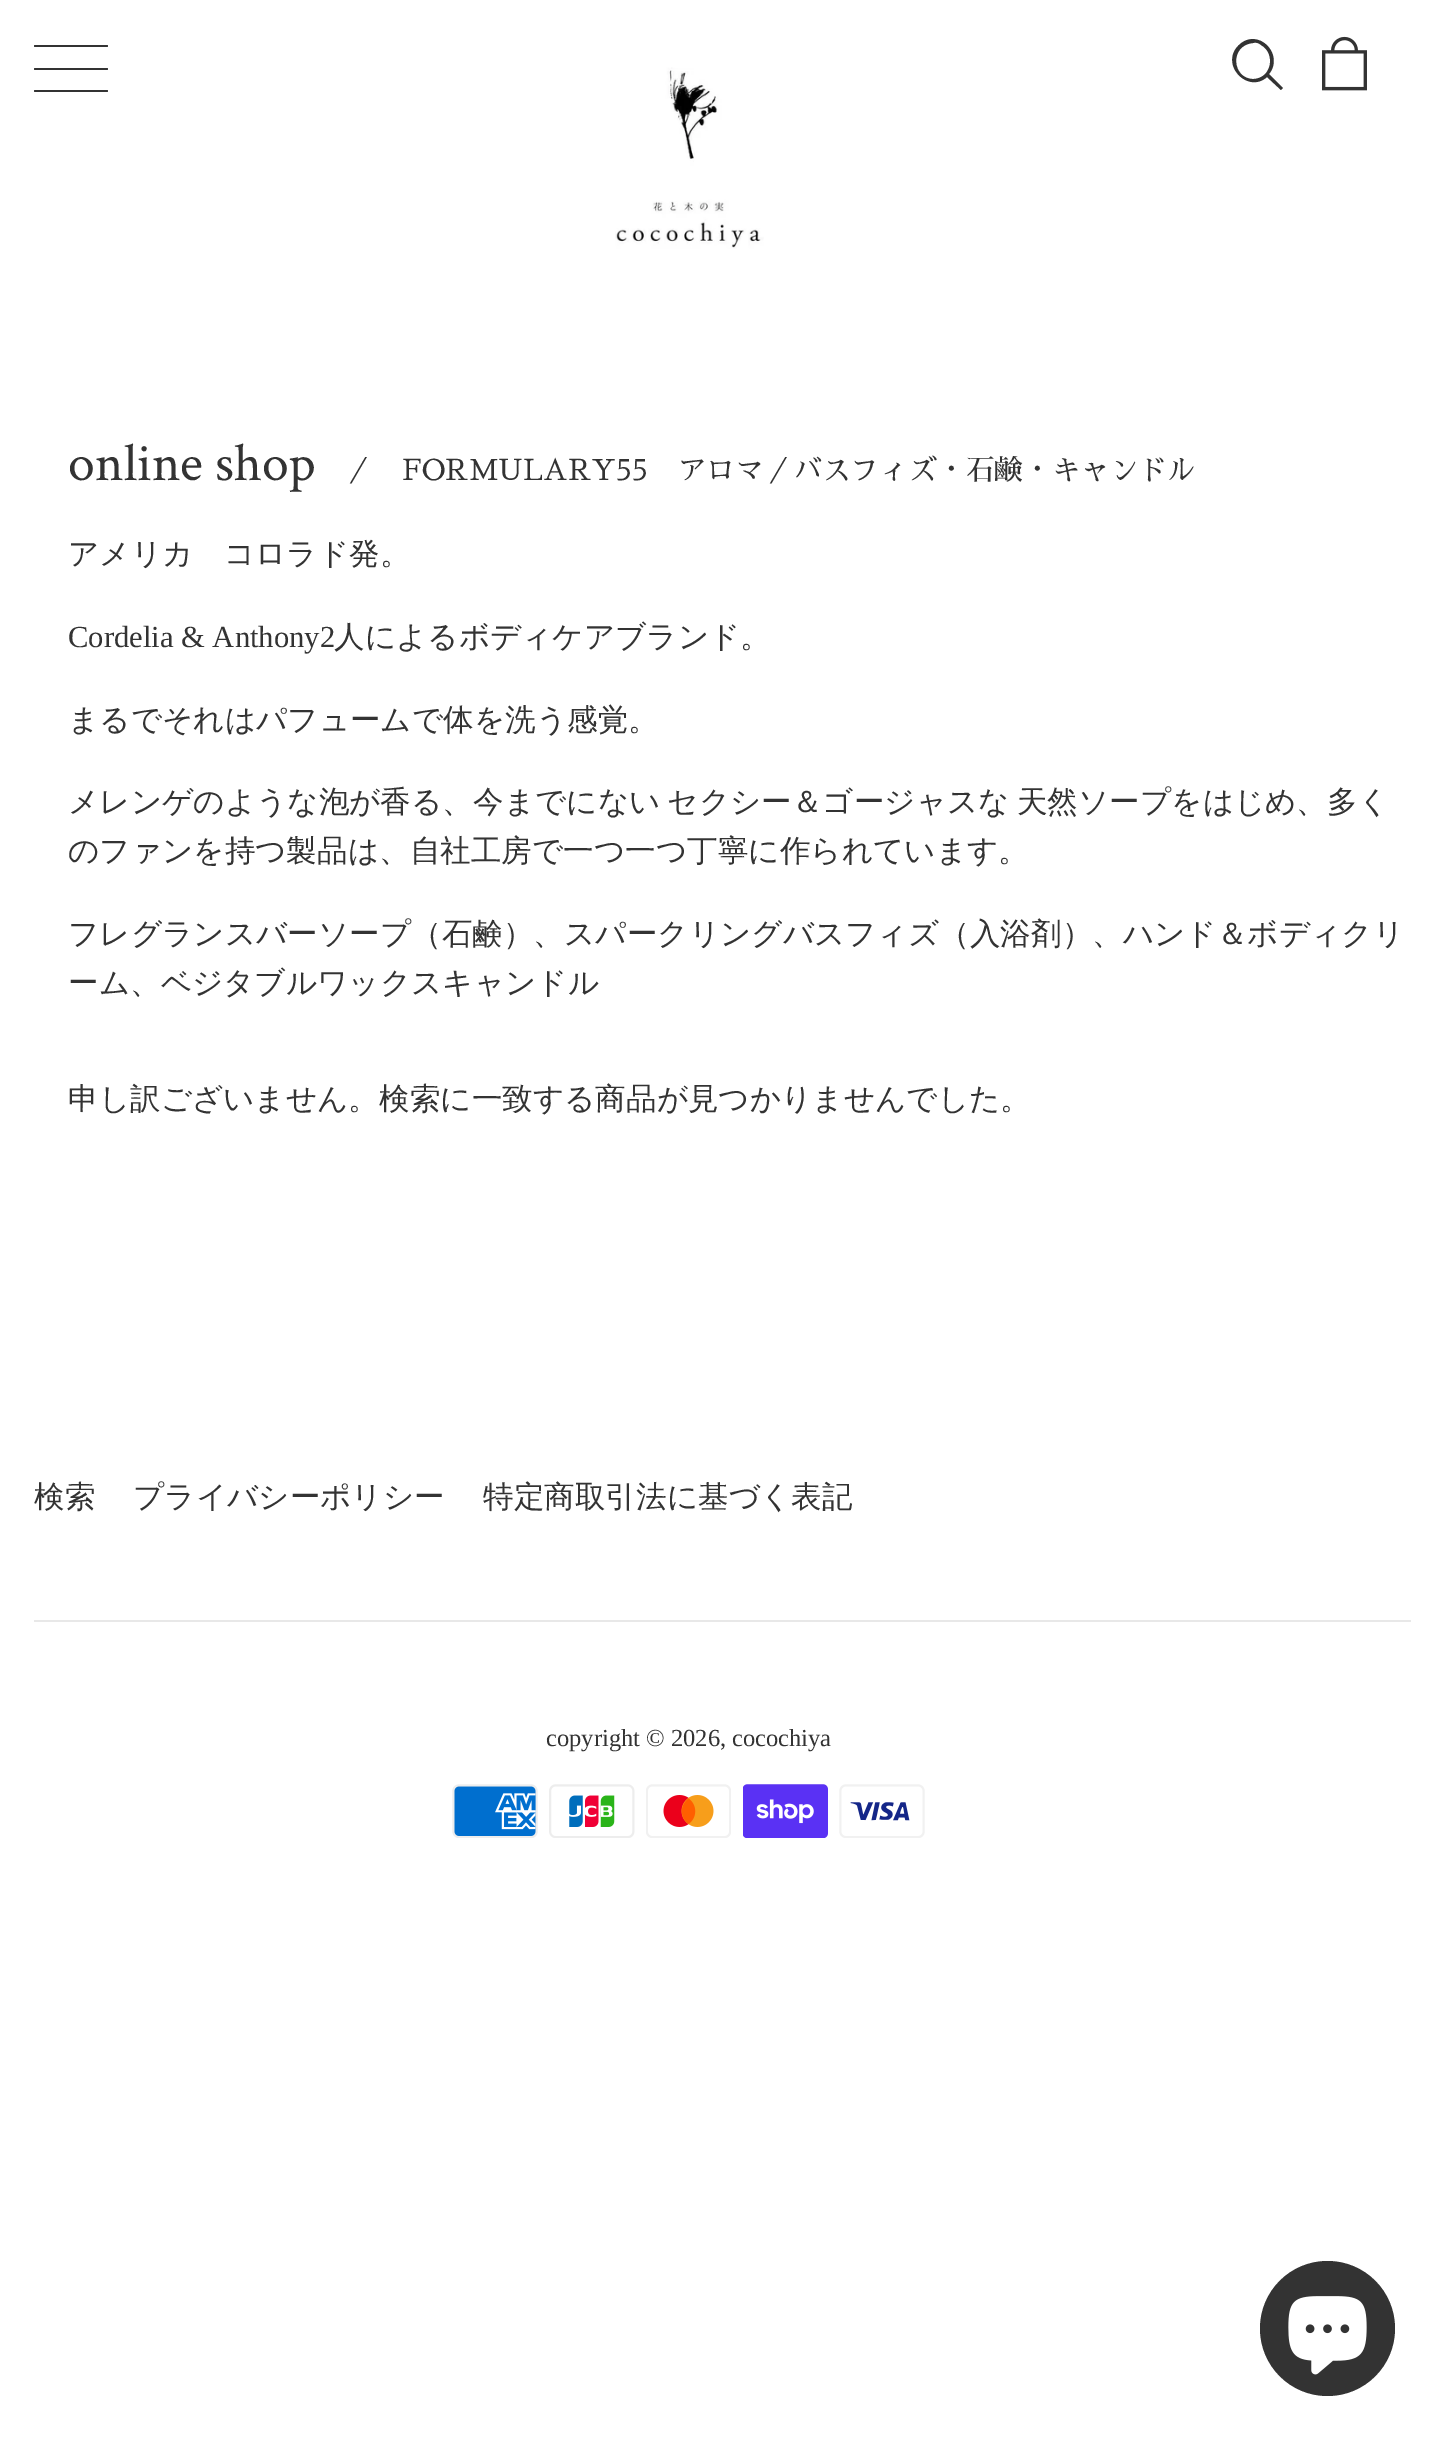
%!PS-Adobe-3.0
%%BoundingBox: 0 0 1443 2443
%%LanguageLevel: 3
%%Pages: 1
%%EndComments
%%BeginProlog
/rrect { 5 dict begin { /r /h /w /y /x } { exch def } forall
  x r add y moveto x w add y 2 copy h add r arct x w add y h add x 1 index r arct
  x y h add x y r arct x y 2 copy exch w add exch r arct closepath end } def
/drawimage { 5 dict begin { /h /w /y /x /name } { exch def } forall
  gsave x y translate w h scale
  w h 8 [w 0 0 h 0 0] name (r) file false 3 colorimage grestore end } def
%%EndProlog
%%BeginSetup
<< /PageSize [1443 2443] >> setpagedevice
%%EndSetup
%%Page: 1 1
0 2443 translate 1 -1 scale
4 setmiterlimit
1 setgray
0 0 1443 2443 rectfill
(images/1.raw) 615 67 149 182 drawimage
0.2 setgray
newpath 1283 88 moveto 1269 74 lineto 1285 54 1257 26 1238 46 curveto 1220 65 1248 94 1267 77 curveto 1281 90 lineto closepath 1253 79 moveto 1232 79 1229 45 1253 43 curveto 1256 42 1259 43 1261 45 curveto 1276 53 1272 79 1253 79 curveto closepath fill
(images/2.raw) 1322 36 45 55 drawimage
34 45 74 2 1 rrect fill
34 68 74 2 1 rrect fill
34 90 74 2 1 rrect fill
0.91 setgray
34 1620 1377 2 rectfill
(images/3.raw) 452 1784 86 54 drawimage
(images/4.raw) 549 1784 86 54 drawimage
(images/5.raw) 646 1784 85 54 drawimage
(images/6.raw) 743 1784 85 54 drawimage
(images/7.raw) 839 1784 86 54 drawimage
0.2 setgray
newpath 1327.5 2328.5 67.5 0 360 arc closepath fill
(images/8.raw) 1288 2296 79 79 drawimage
/CrimsonText-Regular [54 0 0 -54 0 0] selectfont
68 480 moveto (online shop) show
/SawarabiMincho-Regular [28.8 0 0 -28.8 0 0] selectfont
344 480 moveto (／　FORMULARY55　アロマ／バスフィズ・石鹸・キャンドル) show
/WenQuanYiZenHei-Medium [30.6 0 0 -30.6 0 0] selectfont
68 564 moveto (アメリカ　コロラド発。) show
/LiberationSerif-Regular [30.6 0 0 -30.6 0 0] selectfont
68 647 moveto (Cordelia & Anthony2) show
/WenQuanYiZenHei-Medium [30.6 0 0 -30.6 0 0] selectfont
334 647 moveto (人によるボディケアブランド。) show
68 730 moveto (まるでそれはパフュームで体を洗う感覚。) show
68 812 moveto -2 0 32 (メレンゲのような泡が香る、今までにない セクシー＆ゴージャスな 天然ソープをはじめ、多く) widthshow
68 861 moveto (のファンを持つ製品は、自社工房で一つ一つ丁寧に作られています。) show
68 944 moveto (フレグランスバーソープ（石鹸）、スパークリングバスフィズ（入浴剤）、ハンド＆ボディクリ) show
68 993 moveto (ーム、ベジタブルワックスキャンドル) show
68 1109 moveto (申し訳ございません。検索に一致する商品が見つかりませんでした。) show
34 1507 moveto (検索) show
133 1507 moveto (プライバシーポリシー) show
483 1507 moveto (特定商取引法に基づく表記) show
/LiberationSerif-Regular [24.5 0 0 -24.5 0 0] selectfont
546 1746 moveto (copyright © 2026, cocochiya) show
showpage
%%EOF
